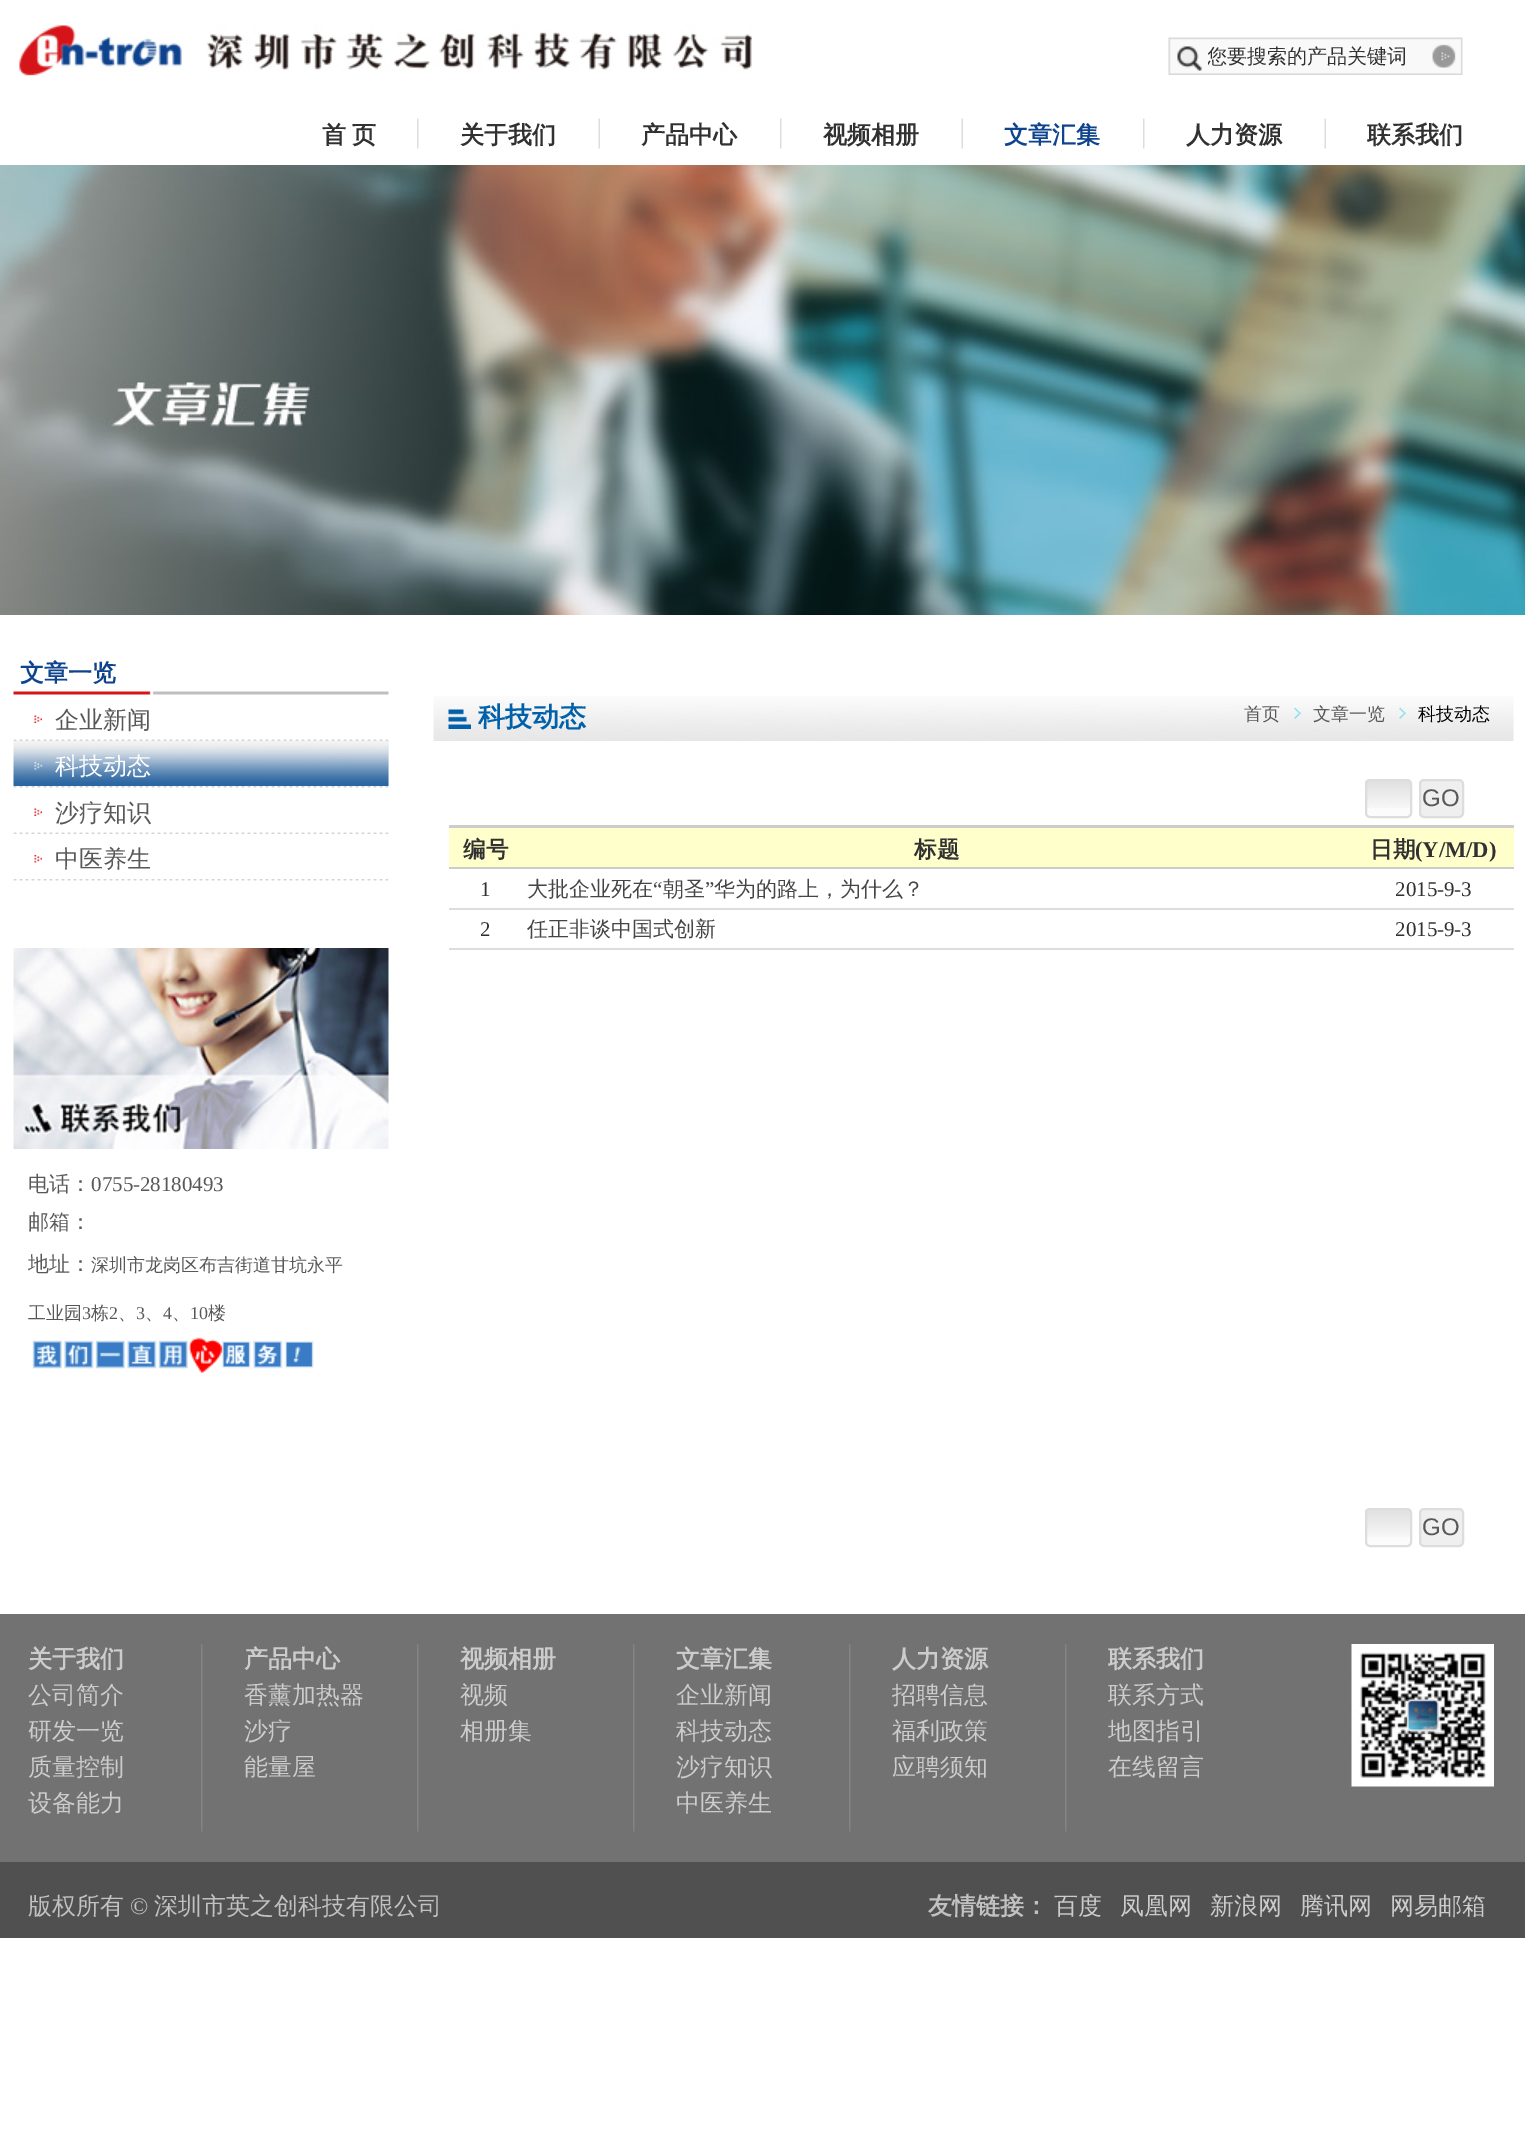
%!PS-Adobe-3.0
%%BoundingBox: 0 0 1525 2148
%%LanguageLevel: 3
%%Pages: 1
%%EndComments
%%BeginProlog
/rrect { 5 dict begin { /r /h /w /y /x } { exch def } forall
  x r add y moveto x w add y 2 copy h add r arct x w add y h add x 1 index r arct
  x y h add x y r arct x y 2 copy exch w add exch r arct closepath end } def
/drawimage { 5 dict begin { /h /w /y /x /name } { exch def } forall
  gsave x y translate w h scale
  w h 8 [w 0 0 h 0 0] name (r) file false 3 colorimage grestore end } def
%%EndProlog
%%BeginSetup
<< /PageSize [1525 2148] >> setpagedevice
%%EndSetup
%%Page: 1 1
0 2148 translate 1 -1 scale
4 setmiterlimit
1 setgray
0 0 1525 2148 rectfill
(images/1.raw) 19 25 733 51 drawimage
(images/2.raw) 1168 37 295 38 drawimage
(images/3.raw) 1177 46 25 25 drawimage
(images/4.raw) 1432 44 24 24 drawimage
(images/5.raw) 417 118 2 31 drawimage
(images/6.raw) 598 118 2 31 drawimage
(images/5.raw) 780 118 2 31 drawimage
(images/6.raw) 961 118 2 31 drawimage
(images/5.raw) 1143 118 2 31 drawimage
(images/6.raw) 1324 118 2 31 drawimage
(images/7.raw) 0 165 1525 450 drawimage
(images/8.raw) 13 691 376 4 drawimage
(images/9.raw) 13 739 376 2 drawimage
(images/10.raw) 34 715 8 8 drawimage
(images/11.raw) 13 786 376 2 drawimage
0.949 setgray
388 741 1 45 rectfill
(images/12.raw) 13 741 376 45 drawimage
(images/9.raw) 13 832 376 2 drawimage
(images/10.raw) 34 808 8 8 drawimage
(images/11.raw) 13 879 376 2 drawimage
(images/13.raw) 34 855 8 8 drawimage
(images/14.raw) 13 948 376 201 drawimage
(images/15.raw) 32 1337 282 37 drawimage
(images/16.raw) 433 696 1081 45 drawimage
(images/17.raw) 448 709 23 20 drawimage
(images/18.raw) 1294 707 7 12 drawimage
(images/19.raw) 1399 707 7 12 drawimage
0.984 setgray
1365 779 47 39 5 rrect fill
(images/20.raw) 1365 780 47 28 drawimage
0.867 setgray
2 setlinewidth
1366 780 45 37 4 rrect stroke
0.937 setgray
1420 780 43 37 4 rrect gsave fill grestore
0.867 setgray
stroke
0.8 setgray
449 825 1065 3 rectfill
1 1 0.8 setrgbcolor
449 828 1065 39 rectfill
0.8 setgray
449 867 1065 2 rectfill
0.867 setgray
449 908 1065 2 rectfill
449 948 1065 2 rectfill
0.984 setgray
1365 1508 47 39 5 rrect fill
(images/20.raw) 1365 1509 47 28 drawimage
0.867 setgray
1366 1509 45 37 4 rrect stroke
0.937 setgray
1420 1509 43 37 4 rrect gsave fill grestore
0.867 setgray
stroke
0.447 setgray
0 1614 1525 248 rectfill
(images/21.raw) 201 1644 2 188 drawimage
(images/21.raw) 417 1644 2 188 drawimage
(images/21.raw) 633 1644 2 188 drawimage
(images/21.raw) 849 1644 2 188 drawimage
(images/21.raw) 1065 1644 2 188 drawimage
(images/22.raw) 1351 1644 143 143 drawimage
0.314 setgray
0 1862 1525 76 rectfill
gsave
1208 44 219 27 rectclip
/WenQuanYiZenHei-Medium [20 0 0 -20 0 0] selectfont
0.192 setgray
1207 63 moveto (您要搜索的产品关键词) show
grestore
/WenQuanYiZenHei-Bold [24 0 0 -24 0 0] selectfont
0.192 setgray
322 143 moveto -1 0 32 (首 页) widthshow
460 143 moveto (关于我们) show
641 143 moveto (产品中心) show
823 143 moveto (视频相册) show
0.055 0.263 0.553 setrgbcolor
1004 143 moveto (文章汇集) show
0.192 setgray
1186 143 moveto (人力资源) show
1367 143 moveto (联系我们) show
0.055 0.263 0.553 setrgbcolor
20 681 moveto (文章一览) show
/WenQuanYiZenHei-Medium [24 0 0 -24 0 0] selectfont
0.345 setgray
55 728 moveto (企业新闻) show
1 setgray
55 774 moveto (科技动态) show
0.345 setgray
55 821 moveto (沙疗知识) show
55 867 moveto (中医养生) show
/WenQuanYiZenHei-Medium [21 0 0 -21 0 0] selectfont
28 1191 moveto (电话：) show
/LiberationSerif-Regular [21 0 0 -21 0 0] selectfont
91 1191 moveto (0755-28180493) show
/WenQuanYiZenHei-Medium [21 0 0 -21 0 0] selectfont
28 1229 moveto (邮箱：) show
28 1271 moveto (地址：) show
/WenQuanYiZenHei-Medium [18 0 0 -18 0 0] selectfont
91 1271 moveto (深圳市龙岗区布吉街道甘坑永平) show
28 1319 moveto (工业园) show
/LiberationSerif-Regular [18 0 0 -18 0 0] selectfont
82 1319 moveto (3) show
/WenQuanYiZenHei-Medium [18 0 0 -18 0 0] selectfont
91 1319 moveto (栋) show
/LiberationSerif-Regular [18 0 0 -18 0 0] selectfont
109 1319 moveto (2) show
/WenQuanYiZenHei-Medium [18 0 0 -18 0 0] selectfont
118 1319 moveto (、) show
/LiberationSerif-Regular [18 0 0 -18 0 0] selectfont
136 1319 moveto (3) show
/WenQuanYiZenHei-Medium [18 0 0 -18 0 0] selectfont
145 1319 moveto (、) show
/LiberationSerif-Regular [18 0 0 -18 0 0] selectfont
163 1319 moveto (4) show
/WenQuanYiZenHei-Medium [18 0 0 -18 0 0] selectfont
172 1319 moveto (、) show
/LiberationSerif-Regular [18 0 0 -18 0 0] selectfont
190 1319 moveto (10) show
/WenQuanYiZenHei-Medium [18 0 0 -18 0 0] selectfont
208 1319 moveto (楼) show
/WenQuanYiZenHei-Bold [27 0 0 -27 0 0] selectfont
0 0.376 0.663 setrgbcolor
478 726 moveto (科技动态) show
/WenQuanYiZenHei-Medium [18 0 0 -18 0 0] selectfont
0.345 setgray
1244 720 moveto (首页) show
1313 720 moveto (文章一览) show
0 setgray
1418 720 moveto (科技动态) show
/LiberationSans-Regular [24 0 0 -24 0 0] selectfont
0.345 setgray
1422 806 moveto (GO) show
/WenQuanYiZenHei-Bold [22.5 0 0 -22.5 0 0] selectfont
0.192 setgray
463 857 moveto (编号) show
914 857 moveto (标题) show
1370 857 moveto (日期) show
/LiberationSerif-Bold [22.5 0 0 -22.5 0 0] selectfont
1415 857 moveto (\(Y/M/D\)) show
/LiberationSerif-Regular [21 0 0 -21 0 0] selectfont
480 896 moveto (1) show
/WenQuanYiZenHei-Medium [21 0 0 -21 0 0] selectfont
0.271 setgray
527 896 moveto (大批企业死在) show
/LiberationSerif-Regular [21 0 0 -21 0 0] selectfont
653 896 moveto (“) show
/WenQuanYiZenHei-Medium [21 0 0 -21 0 0] selectfont
663 896 moveto (朝圣) show
/LiberationSerif-Regular [21 0 0 -21 0 0] selectfont
705 896 moveto (”) show
/WenQuanYiZenHei-Medium [21 0 0 -21 0 0] selectfont
714 896 moveto (华为的路上，为什么？) show
/LiberationSerif-Regular [21 0 0 -21 0 0] selectfont
0.192 setgray
1395 896 moveto (2015-9-3) show
480 936 moveto (2) show
/WenQuanYiZenHei-Medium [21 0 0 -21 0 0] selectfont
0.271 setgray
527 936 moveto (任正非谈中国式创新) show
/LiberationSerif-Regular [21 0 0 -21 0 0] selectfont
0.192 setgray
1395 936 moveto (2015-9-3) show
/LiberationSans-Regular [24 0 0 -24 0 0] selectfont
0.345 setgray
1422 1535 moveto (GO) show
/WenQuanYiZenHei-Bold [24 0 0 -24 0 0] selectfont
0.8 setgray
28 1667 moveto (关于我们) show
/WenQuanYiZenHei-Medium [24 0 0 -24 0 0] selectfont
28 1703 moveto (公司简介) show
28 1739 moveto (研发一览) show
28 1775 moveto (质量控制) show
28 1811 moveto (设备能力) show
/WenQuanYiZenHei-Bold [24 0 0 -24 0 0] selectfont
244 1667 moveto (产品中心) show
/WenQuanYiZenHei-Medium [24 0 0 -24 0 0] selectfont
244 1703 moveto (香薰加热器) show
244 1739 moveto (沙疗) show
244 1775 moveto (能量屋) show
/WenQuanYiZenHei-Bold [24 0 0 -24 0 0] selectfont
460 1667 moveto (视频相册) show
/WenQuanYiZenHei-Medium [24 0 0 -24 0 0] selectfont
460 1703 moveto (视频) show
460 1739 moveto (相册集) show
/WenQuanYiZenHei-Bold [24 0 0 -24 0 0] selectfont
676 1667 moveto (文章汇集) show
/WenQuanYiZenHei-Medium [24 0 0 -24 0 0] selectfont
676 1703 moveto (企业新闻) show
676 1739 moveto (科技动态) show
676 1775 moveto (沙疗知识) show
676 1811 moveto (中医养生) show
/WenQuanYiZenHei-Bold [24 0 0 -24 0 0] selectfont
892 1667 moveto (人力资源) show
/WenQuanYiZenHei-Medium [24 0 0 -24 0 0] selectfont
892 1703 moveto (招聘信息) show
892 1739 moveto (福利政策) show
892 1775 moveto (应聘须知) show
/WenQuanYiZenHei-Bold [24 0 0 -24 0 0] selectfont
1108 1667 moveto (联系我们) show
/WenQuanYiZenHei-Medium [24 0 0 -24 0 0] selectfont
1108 1703 moveto (联系方式) show
1108 1739 moveto (地图指引) show
1108 1775 moveto (在线留言) show
0.757 setgray
28 1914 moveto (版权所有) show
/LiberationSerif-Regular [24 0 0 -24 0 0] selectfont
130 1914 moveto (©) show
/WenQuanYiZenHei-Medium [24 0 0 -24 0 0] selectfont
154 1914 moveto (深圳市英之创科技有限公司) show
/WenQuanYiZenHei-Bold [24 0 0 -24 0 0] selectfont
928 1914 moveto (友情链接：) show
/WenQuanYiZenHei-Medium [24 0 0 -24 0 0] selectfont
0.8 setgray
1054 1914 moveto (百度) show
1120 1914 moveto (凤凰网) show
1210 1914 moveto (新浪网) show
1300 1914 moveto (腾讯网) show
1390 1914 moveto (网易邮箱) show
showpage
%%EOF
